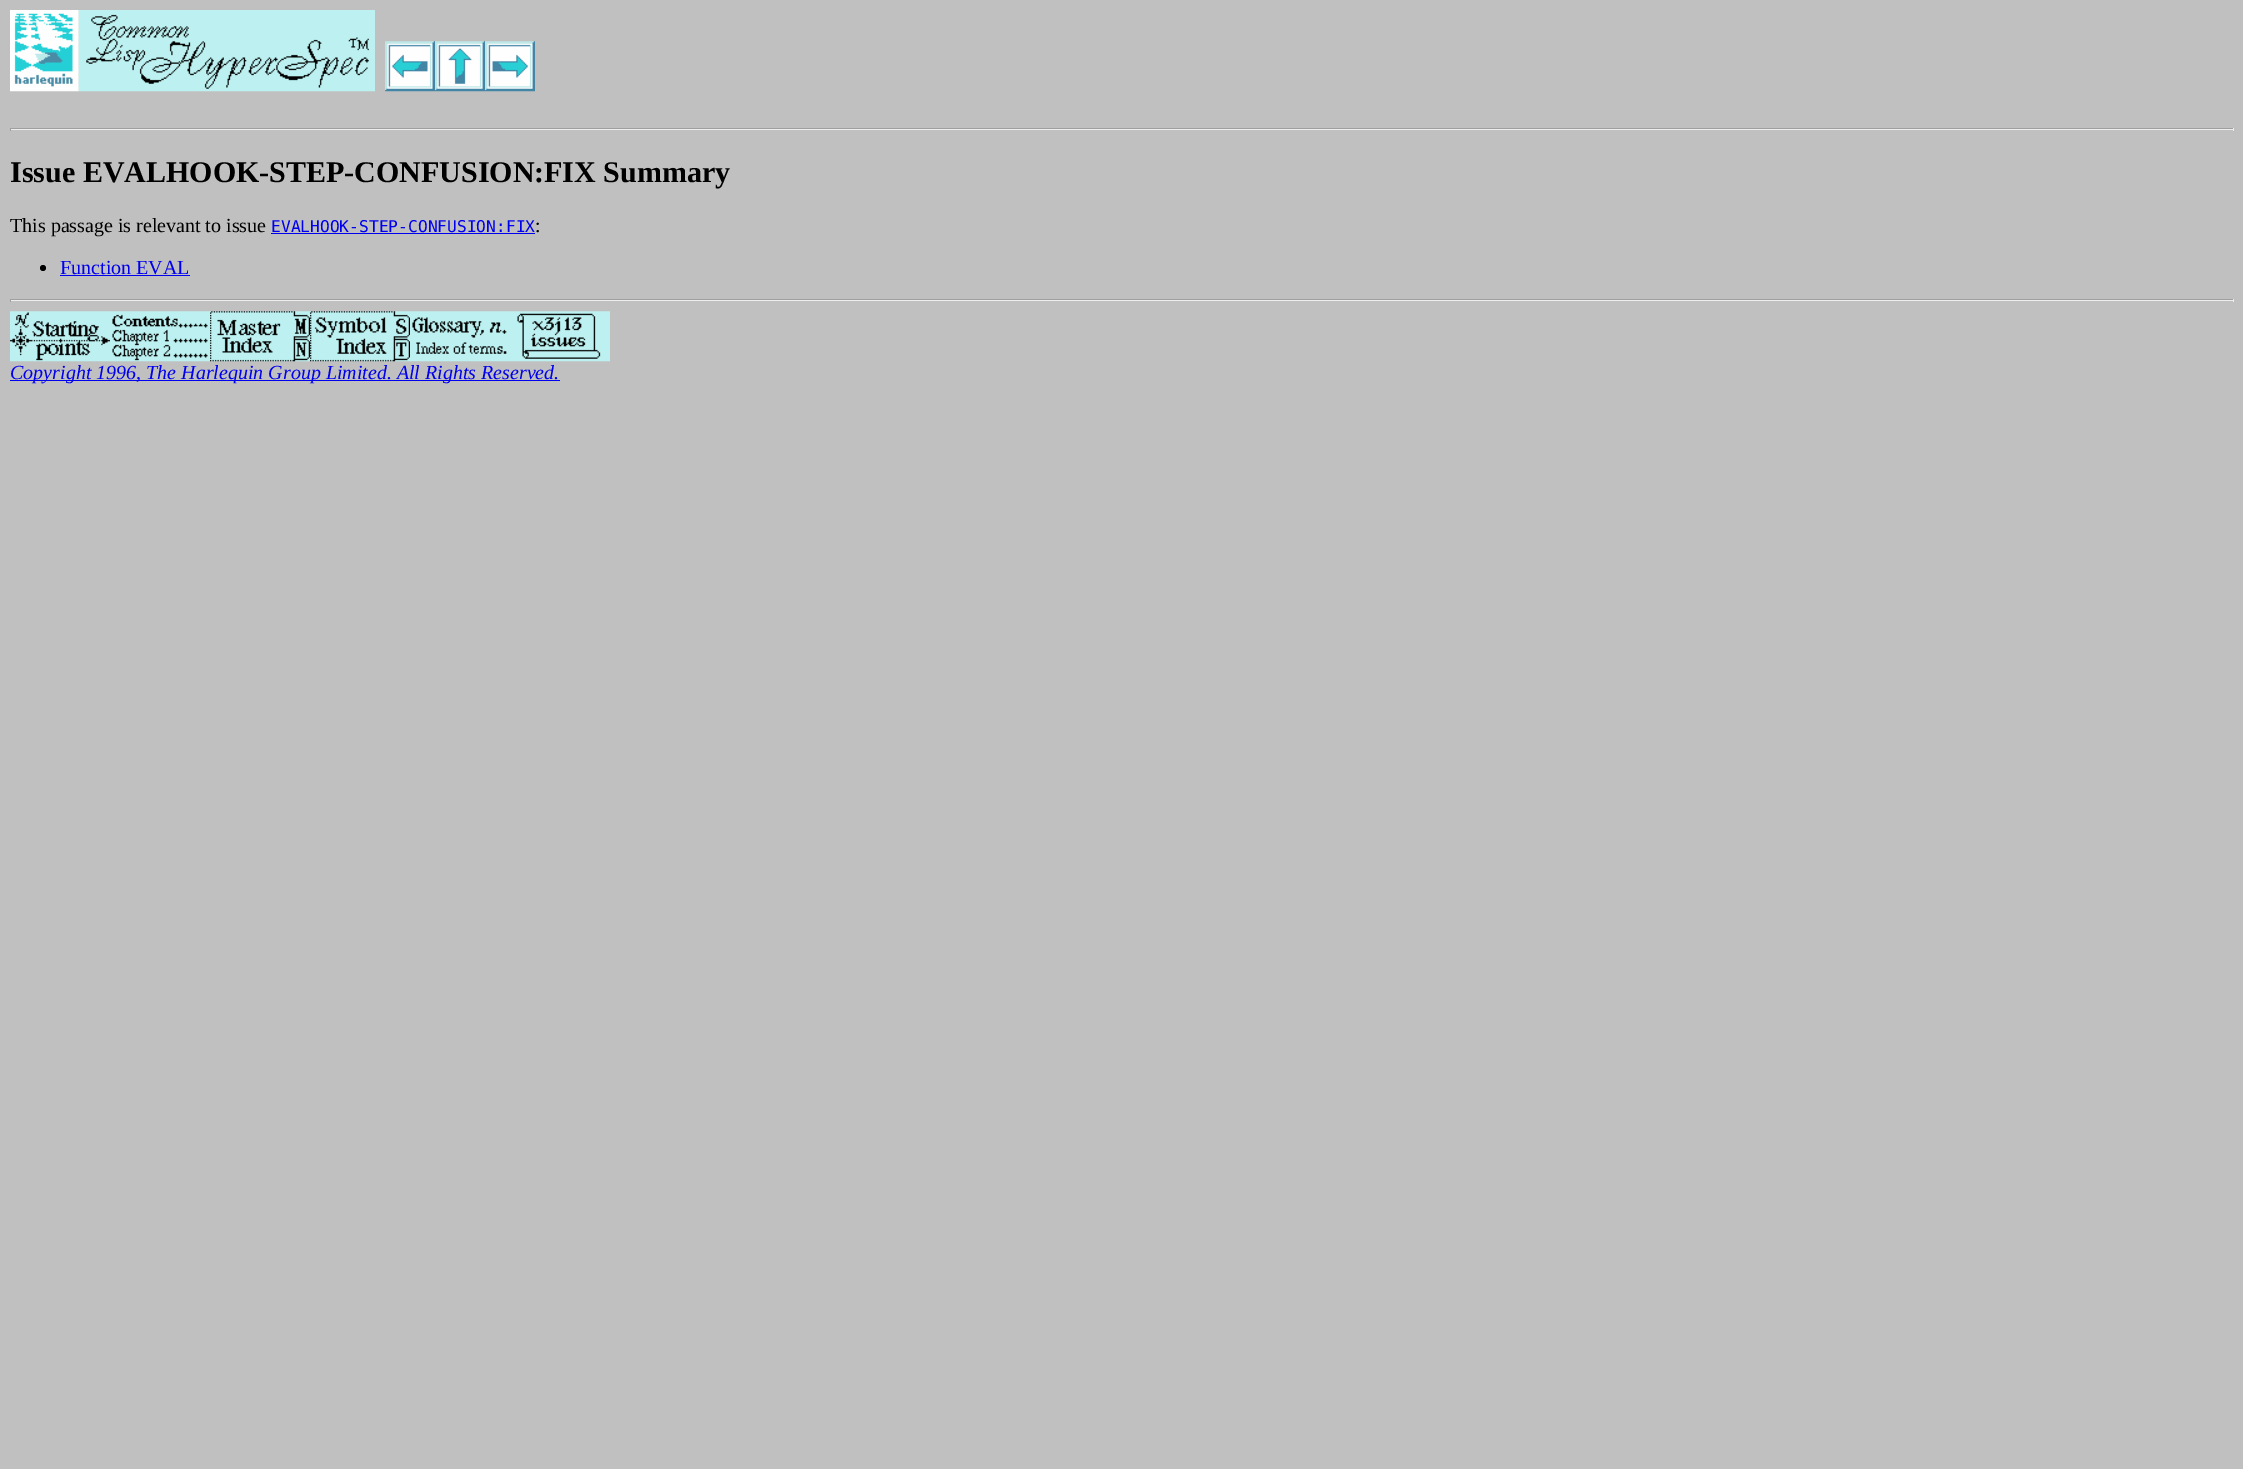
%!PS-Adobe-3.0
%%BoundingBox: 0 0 2243 1469
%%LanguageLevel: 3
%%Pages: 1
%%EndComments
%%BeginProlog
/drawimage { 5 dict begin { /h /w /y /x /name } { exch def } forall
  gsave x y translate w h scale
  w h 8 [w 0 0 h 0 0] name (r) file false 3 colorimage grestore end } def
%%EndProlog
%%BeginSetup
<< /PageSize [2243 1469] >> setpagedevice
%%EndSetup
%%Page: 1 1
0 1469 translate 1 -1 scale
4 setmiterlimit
0.753 setgray
0 0 2243 1469 rectfill
(images/1.raw) 10 10 69 82 drawimage
(images/2.raw) 78 10 297 82 drawimage
(images/3.raw) 385 41 50 51 drawimage
(images/4.raw) 435 41 50 51 drawimage
(images/5.raw) 485 41 50 51 drawimage
0.624 setgray
10 128 2224 1 rectfill
0.933 setgray
2233 128 1 3 rectfill
10 129 2224 1 rectfill
0.624 setgray
10 128 1 3 rectfill
0 0 0.933 setrgbcolor
271 233 264 1 rectfill
0 setgray
newpath 43 268 3 0 360 arc closepath fill
0 0 0.933 setrgbcolor
60 275 130 1 rectfill
0.624 setgray
10 299 2224 1 rectfill
0.933 setgray
2233 299 1 3 rectfill
10 300 2224 1 rectfill
0.624 setgray
10 299 1 3 rectfill
(images/6.raw) 10 311 100 51 drawimage
(images/7.raw) 110 311 100 51 drawimage
(images/8.raw) 210 311 100 51 drawimage
(images/9.raw) 310 311 100 51 drawimage
(images/10.raw) 410 311 100 51 drawimage
(images/11.raw) 510 311 100 51 drawimage
0 0 0.933 setrgbcolor
10 380 550 1 rectfill
/LiberationSerif-Bold [30 0 0 -30 0 0] selectfont
0 setgray
10 182 moveto (Issue EVALHOOK-STEP-CONFUSION:FIX Summary) show
/LiberationSerif-Regular [20 0 0 -20 0 0] selectfont
10 232 moveto (This passage is relevant to issue) show
/DejaVuSansMono-Regular [16.25 0 0 -16.25 0 0] selectfont
0 0 0.933 setrgbcolor
271 232 moveto (EVALHOOK-STEP-CONFUSION:FIX) show
/LiberationSerif-Regular [20 0 0 -20 0 0] selectfont
0 setgray
535 232 moveto (:) show
0 0 0.933 setrgbcolor
60 274 moveto (Function EVAL) show
/LiberationSerif-Italic [20 0 0 -20 0 0] selectfont
10 379 moveto (Copyright 1996, The Harlequin Group Limited. All Rights Reserved.) show
showpage
%%EOF
